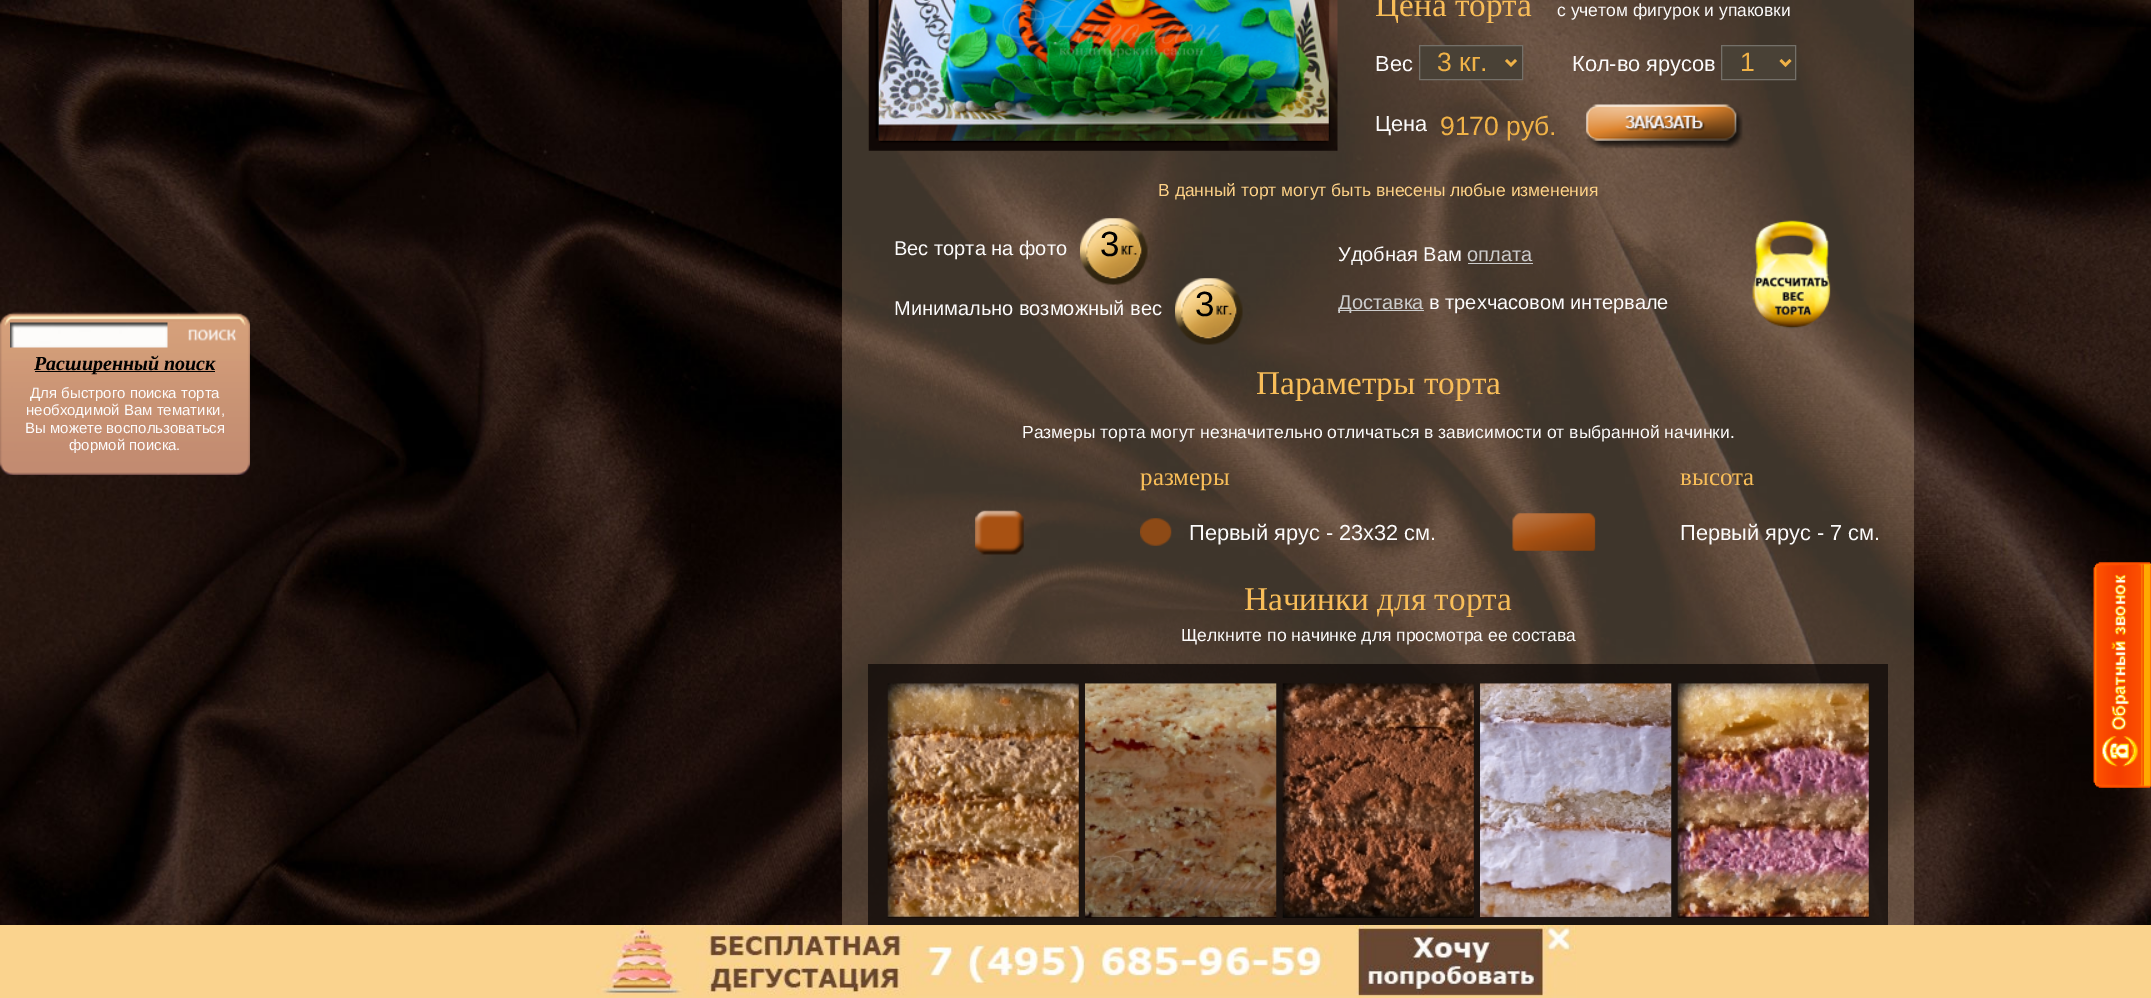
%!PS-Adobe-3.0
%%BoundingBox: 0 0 2151 998
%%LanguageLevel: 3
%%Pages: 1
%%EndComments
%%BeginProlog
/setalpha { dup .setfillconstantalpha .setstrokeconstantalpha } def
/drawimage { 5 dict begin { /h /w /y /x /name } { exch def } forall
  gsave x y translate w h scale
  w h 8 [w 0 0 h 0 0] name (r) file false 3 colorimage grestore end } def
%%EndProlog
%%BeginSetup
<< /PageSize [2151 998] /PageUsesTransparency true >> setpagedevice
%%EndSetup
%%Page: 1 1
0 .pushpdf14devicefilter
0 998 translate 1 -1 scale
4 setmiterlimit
1 setgray
0 0 2151 998 rectfill
(images/1.raw) 0 0 2151 925 drawimage
(images/2.raw) 0 312 250 163 drawimage
(images/3.raw) 10 322 158 26 drawimage
(images/4.raw) 188 329 49 12 drawimage
0 setgray
35 371 180 1 rectfill
0.29 setalpha
0.843 0.718 0.58 setrgbcolor
842 0 1072 925 rectfill
1 setalpha
(images/5.raw) 868 0 470 151 drawimage
(images/6.raw) 878 0 451 141 drawimage
0.286 0.255 0.212 setrgbcolor
newpath 1419.5 45.5 moveto 1522.5 45.5 lineto 1522.5 79.5 lineto 1419.5 79.5 lineto closepath gsave fill grestore
0.455 0.439 0.412 setrgbcolor
stroke
0.941 0.698 0.278 setrgbcolor
2.5 setlinewidth
newpath 1506 60 moveto 1511 65 lineto 1516 60 lineto stroke
0.286 0.255 0.212 setrgbcolor
newpath 1721.5 45.5 moveto 1795.5 45.5 lineto 1795.5 79.5 lineto 1721.5 79.5 lineto closepath gsave fill grestore
0.455 0.439 0.412 setrgbcolor
1 setlinewidth
stroke
0.941 0.698 0.278 setrgbcolor
2.5 setlinewidth
newpath 1780.5 60 moveto 1785.5 65 lineto 1790.5 60 lineto stroke
(images/7.raw) 1586 104 157 45 drawimage
(images/8.raw) 1080 218 68 67 drawimage
(images/9.raw) 1175 278 68 67 drawimage
0.8 setgray
1468 263 65 1 rectfill
1338 310 86 1 rectfill
(images/10.raw) 1752 220 79 109 drawimage
(images/11.raw) 975 510 49 45 drawimage
(images/12.raw) 1140 518 32 28 drawimage
(images/13.raw) 1512 513 84 38 drawimage
0.79 setalpha
0.063 0.039 0.031 setrgbcolor
868 664 1020 261 rectfill
1 setalpha
(images/14.raw) 887 683 192 235 drawimage
(images/15.raw) 1085 683 192 235 drawimage
(images/16.raw) 1282 683 192 235 drawimage
(images/17.raw) 1480 683 192 235 drawimage
(images/18.raw) 1677 683 192 235 drawimage
(images/19.raw) 2093 562 58 226 drawimage
(images/20.raw) 2093 562 58 226 drawimage
0.98 0.827 0.557 setrgbcolor
0 925 2151 73 rectfill
(images/21.raw) 596 925 981 73 drawimage
/LiberationSerif-BoldItalic [20 0 0 -20 0 0] selectfont
0 setgray
34 370 moveto (Расширенный поиск) show
/LiberationSans-Regular [15 0 0 -15 0 0] selectfont
0.988 0.984 0.984 setrgbcolor
30 398 moveto (Для быстрого поиска торта) show
26 415 moveto (необходимой Вам тематики,) show
25 433 moveto (Вы можете воспользоваться) show
69 450 moveto (формой поиска.) show
/LiberationSerif-Regular [33.25 0 0 -33.25 0 0] selectfont
0.973 0.741 0.345 setrgbcolor
1375 16 moveto (Цена торта) show
/LiberationSans-Regular [17.5 0 0 -17.5 0 0] selectfont
0.988 0.984 0.984 setrgbcolor
1557 16 moveto (с учетом фигурок и упаковки) show
/LiberationSans-Regular [21.75 0 0 -21.75 0 0] selectfont
1375 71 moveto (Вес) show
/LiberationSans-Regular [26.5 0 0 -26.5 0 0] selectfont
0.941 0.698 0.278 setrgbcolor
1437 71 moveto (3 кг.) show
/LiberationSans-Regular [21.75 0 0 -21.75 0 0] selectfont
0.988 0.984 0.984 setrgbcolor
1572 71 moveto (Кол-во ярусов) show
/LiberationSans-Regular [26.5 0 0 -26.5 0 0] selectfont
0.941 0.698 0.278 setrgbcolor
1740 71 moveto (1) show
/LiberationSans-Regular [21.75 0 0 -21.75 0 0] selectfont
0.988 0.984 0.984 setrgbcolor
1375 131 moveto (Цена) show
/LiberationSans-Regular [26.5 0 0 -26.5 0 0] selectfont
0.941 0.698 0.278 setrgbcolor
1440 135 moveto (9170 руб.) show
/LiberationSans-Regular [17.5 0 0 -17.5 0 0] selectfont
0.996 0.824 0.529 setrgbcolor
1158 196 moveto (В данный торт могут быть внесены любые изменения) show
/LiberationSans-Regular [20 0 0 -20 0 0] selectfont
0.988 0.984 0.984 setrgbcolor
894 255 moveto (Вес торта на фото) show
/LiberationSans-Regular [35 0 0 -35 0 0] selectfont
0 setgray
1100 256 moveto -3 0 (3) ashow
/LiberationSans-Regular [20 0 0 -20 0 0] selectfont
0.988 0.984 0.984 setrgbcolor
894 315 moveto (Минимально возможный вес) show
/LiberationSans-Regular [35 0 0 -35 0 0] selectfont
0 setgray
1195 316 moveto -3 0 (3) ashow
/LiberationSans-Regular [20 0 0 -20 0 0] selectfont
0.988 0.984 0.984 setrgbcolor
1338 261 moveto (Удобная Вам) show
0.8 setgray
1467 261 moveto (оплата) show
1338 309 moveto (Доставка) show
0.988 0.984 0.984 setrgbcolor
1429 309 moveto (в трехчасовом интервале) show
/LiberationSerif-Regular [33.25 0 0 -33.25 0 0] selectfont
0.973 0.741 0.345 setrgbcolor
1256 394 moveto (Параметры торта) show
/LiberationSans-Regular [17.5 0 0 -17.5 0 0] selectfont
0.988 0.984 0.984 setrgbcolor
1022 438 moveto (Размеры торта могут незначительно отличаться в зависимости от выбранной начинки.) show
/LiberationSerif-Regular [25 0 0 -25 0 0] selectfont
0.973 0.741 0.345 setrgbcolor
1140 485 moveto (размеры) show
1680 485 moveto (высота) show
/LiberationSans-Regular [21.75 0 0 -21.75 0 0] selectfont
0.988 0.984 0.984 setrgbcolor
1189 540 moveto (Первый ярус - 23х32 см.) show
1680 540 moveto (Первый ярус - 7 см.) show
/LiberationSerif-Regular [33.25 0 0 -33.25 0 0] selectfont
0.973 0.741 0.345 setrgbcolor
1244 610 moveto (Начинки для торта) show
/LiberationSans-Regular [17.5 0 0 -17.5 0 0] selectfont
0.988 0.984 0.984 setrgbcolor
1181 641 moveto (Щелкните по начинке для просмотра ее состава) show
.poppdf14devicefilter showpage
%%EOF
